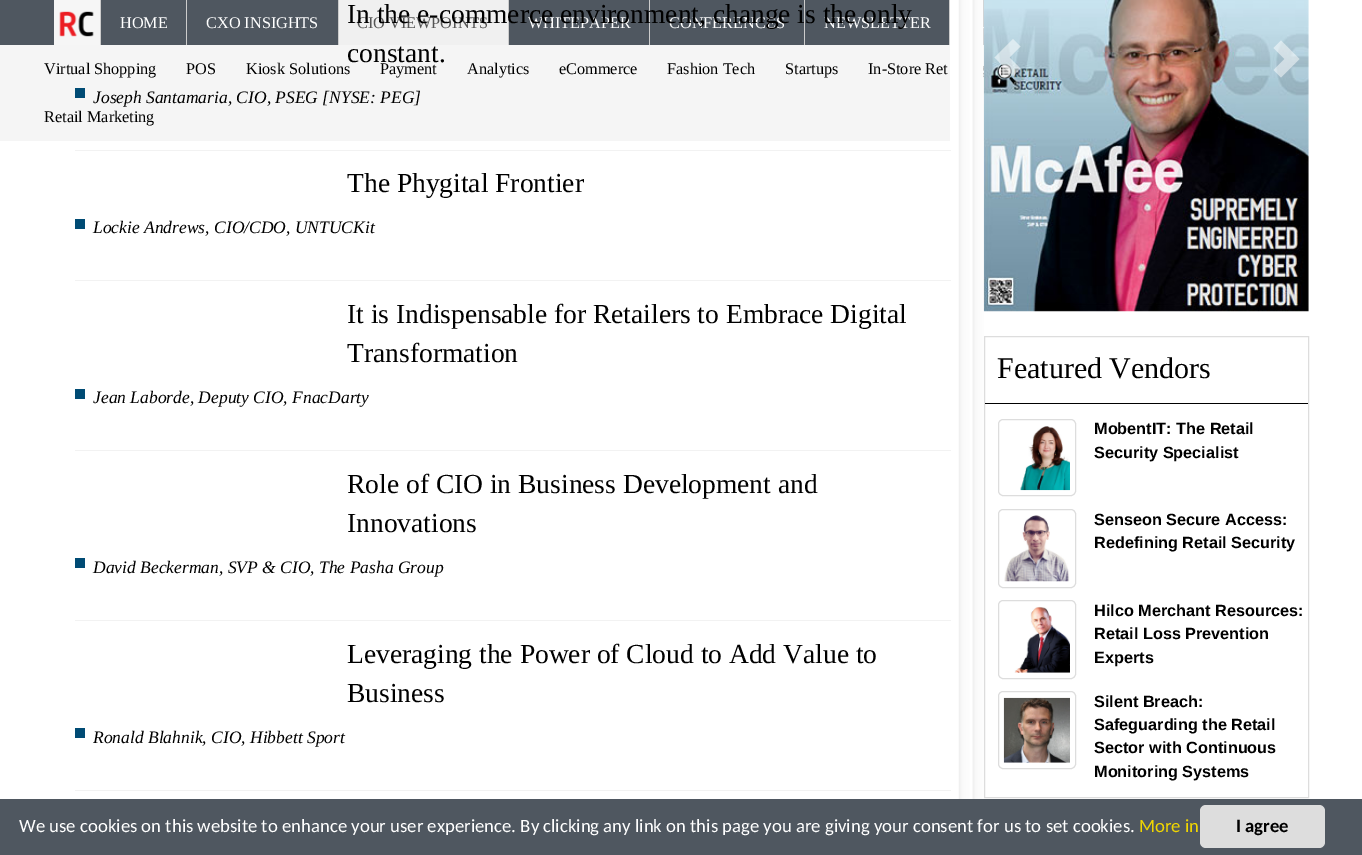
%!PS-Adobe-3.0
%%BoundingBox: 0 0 1362 855
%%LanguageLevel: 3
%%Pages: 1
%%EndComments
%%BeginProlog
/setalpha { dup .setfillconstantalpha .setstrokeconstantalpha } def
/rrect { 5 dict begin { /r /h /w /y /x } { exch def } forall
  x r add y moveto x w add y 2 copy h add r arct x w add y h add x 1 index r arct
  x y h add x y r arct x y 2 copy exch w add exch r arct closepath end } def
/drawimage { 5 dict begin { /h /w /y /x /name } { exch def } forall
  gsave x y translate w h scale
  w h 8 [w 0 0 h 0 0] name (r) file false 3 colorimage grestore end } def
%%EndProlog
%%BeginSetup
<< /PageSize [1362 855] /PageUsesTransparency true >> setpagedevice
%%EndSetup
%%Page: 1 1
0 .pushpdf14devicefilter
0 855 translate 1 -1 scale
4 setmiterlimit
1 setgray
0 0 1362 855 rectfill
0.31 0.341 0.376 setrgbcolor
0 0 984 45 rectfill
0.8 setgray
100 0 1 50 rectfill
186 0 1 46 rectfill
338 0 1 46 rectfill
508 0 1 46 rectfill
649 0 1 46 rectfill
804 0 1 46 rectfill
949 0 1 46 rectfill
0.961 setgray
0 45 984 96 rectfill
(images/1.raw) 950 0 20 799 drawimage
0.949 setgray
75 150 876 1 rectfill
0 0.294 0.455 setrgbcolor
75 88 10 10 rectfill
0.949 setgray
75 280 876 1 rectfill
0 0.294 0.455 setrgbcolor
75 219 10 10 rectfill
0.949 setgray
75 450 876 1 rectfill
0 0.294 0.455 setrgbcolor
75 389 10 10 rectfill
0.949 setgray
75 620 876 1 rectfill
0 0.294 0.455 setrgbcolor
75 558 10 10 rectfill
0.949 setgray
75 790 876 1 rectfill
0 0.294 0.455 setrgbcolor
75 728 10 10 rectfill
(images/2.raw) 970 0 14 799 drawimage
(images/3.raw) 983 0 326 312 drawimage
0.5 setalpha
1 setgray
newpath 1013 76 moveto 1020.5 68.5 lineto 1009.5 57.5 lineto 1020.5 46.5 lineto 1013 39 lineto 994.5 57.5 lineto closepath fill
newpath 1281 77.5 moveto 1273.5 70 lineto 1284.5 59 lineto 1273.5 48 lineto 1281 40.5 lineto 1299.5 59 lineto closepath fill
1 setalpha
0.867 setgray
984.5 336.5 324 461 rectstroke
0 setgray
985 403 323 1 rectfill
0.867 setgray
998.5 419.5 77 76 4.5 rrect stroke
(images/4.raw) 1020 426 50 65 drawimage
998.5 509.5 77 78 4.5 rrect stroke
(images/5.raw) 1004 515 66 67 drawimage
998.5 600.5 77 78 4.5 rrect stroke
(images/6.raw) 1014 606 56 67 drawimage
998.5 691.5 77 77 4.5 rrect stroke
(images/7.raw) 1003 697 67 66 drawimage
0.965 setgray
54 0 46 45 rectfill
(images/8.raw) 59 11 35 26 drawimage
0.941 setgray
339 0 169 45 rectfill
0.31 0.341 0.376 setrgbcolor
0 799 1362 56 rectfill
0.867 setgray
1200 805 125 43 6 rrect fill
/LiberationSerif-Regular [27.5 0 0 -27.5 0 0] selectfont
0 setgray
347 62 moveto (constant.) show
/LiberationSerif-Italic [17.5 0 0 -17.5 0 0] selectfont
93 103 moveto (Joseph Santamaria, CIO, PSEG [NYSE: PEG]) show
/LiberationSerif-Regular [27.5 0 0 -27.5 0 0] selectfont
347 192 moveto (The Phygital Frontier) show
/LiberationSerif-Italic [17.5 0 0 -17.5 0 0] selectfont
93 233 moveto (Lockie Andrews, CIO/CDO, UNTUCKit) show
/LiberationSerif-Regular [27.5 0 0 -27.5 0 0] selectfont
347 323 moveto (It is Indispensable for Retailers to Embrace Digital) show
347 362 moveto (Transformation) show
/LiberationSerif-Italic [17.5 0 0 -17.5 0 0] selectfont
93 403 moveto (Jean Laborde, Deputy CIO, FnacDarty) show
/LiberationSerif-Regular [27.5 0 0 -27.5 0 0] selectfont
347 493 moveto (Role of CIO in Business Development and) show
347 532 moveto (Innovations) show
/LiberationSerif-Italic [17.5 0 0 -17.5 0 0] selectfont
93 573 moveto (David Beckerman, SVP & CIO, The Pasha Group) show
/LiberationSerif-Regular [27.5 0 0 -27.5 0 0] selectfont
347 663 moveto (Leveraging the Power of Cloud to Add Value to) show
347 702 moveto (Business) show
/LiberationSerif-Italic [17.5 0 0 -17.5 0 0] selectfont
93 743 moveto (Ronald Blahnik, CIO, Hibbett Sport) show
/LiberationSerif-Regular [30 0 0 -30 0 0] selectfont
997 378 moveto (Featured Vendors) show
/LiberationSans-Bold [16.25 0 0 -16.25 0 0] selectfont
1094 434 moveto (MobentIT: The Retail) show
1094 458 moveto (Security Specialist) show
1094 525 moveto (Senseon Secure Access:) show
1094 548 moveto (Redefining Retail Security) show
1094 616 moveto (Hilco Merchant Resources:) show
1094 639 moveto (Retail Loss Prevention) show
1094 663 moveto (Experts) show
1094 707 moveto (Silent Breach:) show
1094 730 moveto (Safeguarding the Retail) show
1094 753 moveto (Sector with Continuous) show
1094 777 moveto (Monitoring Systems) show
/LiberationSerif-Regular [16.25 0 0 -16.25 0 0] selectfont
1 setgray
120 28 moveto (HOME) show
206 28 moveto (CXO INSIGHTS) show
0.333 setgray
357 28 moveto (CIO VIEWPOINTS) show
1 setgray
528 28 moveto (WHITEPAPER) show
669 28 moveto (CONFERENCES) show
824 28 moveto (NEWSLETTER) show
/LiberationSerif-Regular [27.5 0 0 -27.5 0 0] selectfont
0 setgray
347 23 moveto (In the e-commerce environment, change is the only) show
/LiberationSerif-Regular [16.25 0 0 -16.25 0 0] selectfont
44 74 moveto (Virtual Shopping) show
186 74 moveto (POS) show
246 74 moveto (Kiosk Solutions) show
380 74 moveto (Payment) show
467 74 moveto (Analytics) show
559 74 moveto (eCommerce) show
667 74 moveto (Fashion Tech) show
785 74 moveto (Startups) show
868 74 moveto (In-Store Ret) show
44 122 moveto (Retail Marketing) show
/Carlito-Regular [18.75 0 0 -18.75 0 0] selectfont
1 setgray
19 832 moveto (We use cookies on this website to enhance your user experience. By clicking any link on this page you are giving your consent for us to set cookies.) show
0.945 0.839 0 setrgbcolor
1139 832 moveto (More in) show
/Carlito-Bold [18.75 0 0 -18.75 0 0] selectfont
0 setgray
1236 832 moveto (I agree) show
.poppdf14devicefilter showpage
%%EOF
